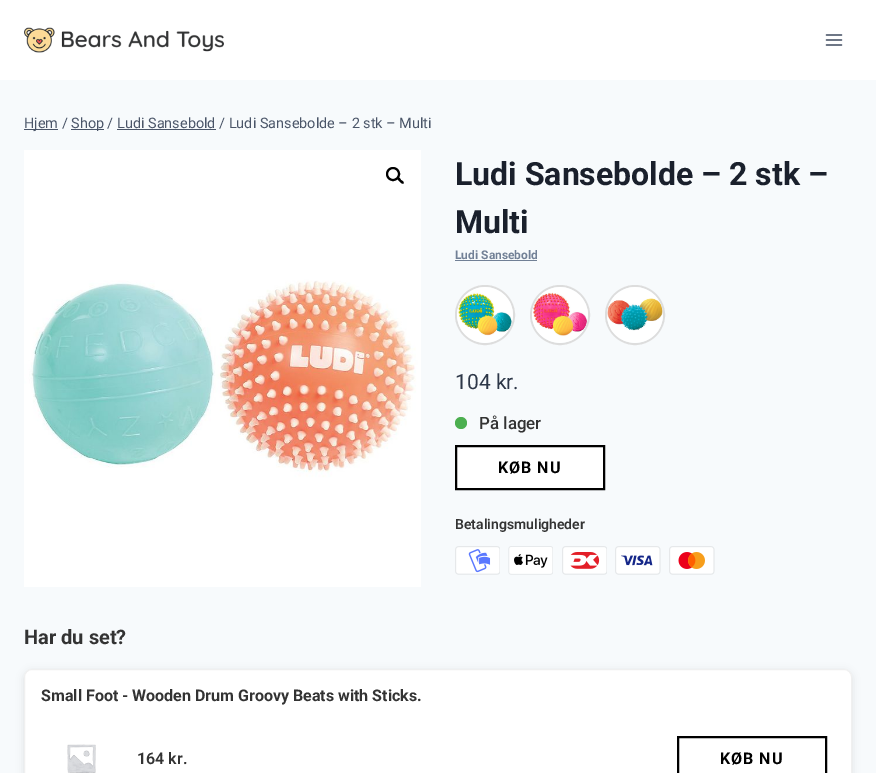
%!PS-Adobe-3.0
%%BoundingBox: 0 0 876 773
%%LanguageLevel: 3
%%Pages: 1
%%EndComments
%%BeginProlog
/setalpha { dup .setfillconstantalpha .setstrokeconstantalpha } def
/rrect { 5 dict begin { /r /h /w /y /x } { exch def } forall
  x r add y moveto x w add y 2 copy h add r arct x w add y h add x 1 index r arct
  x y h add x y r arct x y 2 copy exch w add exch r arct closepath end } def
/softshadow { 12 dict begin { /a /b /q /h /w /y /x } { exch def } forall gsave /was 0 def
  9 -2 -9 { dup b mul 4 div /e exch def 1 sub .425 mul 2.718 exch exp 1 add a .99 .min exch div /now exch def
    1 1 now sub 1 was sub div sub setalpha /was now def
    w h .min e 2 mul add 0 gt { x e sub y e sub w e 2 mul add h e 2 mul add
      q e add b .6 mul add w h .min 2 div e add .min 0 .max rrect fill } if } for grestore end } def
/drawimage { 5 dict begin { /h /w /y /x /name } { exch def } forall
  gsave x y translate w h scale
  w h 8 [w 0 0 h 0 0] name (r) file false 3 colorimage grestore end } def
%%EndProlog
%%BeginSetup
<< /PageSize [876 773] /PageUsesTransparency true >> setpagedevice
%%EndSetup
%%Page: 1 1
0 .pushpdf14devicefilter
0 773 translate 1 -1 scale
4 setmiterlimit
1 setgray
0 0 876 773 rectfill
(images/1.raw) 24 27 200 26 drawimage
(images/2.raw) 825 34 18 12 drawimage
0.969 0.98 0.988 setrgbcolor
0 80 876 693 rectfill
0.29 0.333 0.408 setrgbcolor
24 129 34 1 rectfill
71 129 33 1 rectfill
117 129 99 1 rectfill
(images/3.raw) 24 150 397 437 drawimage
0 setgray
2 setlinewidth
newpath 393 174 6 0 360 arc closepath stroke
newpath 397.5 177.5 moveto 399 176.5 400.5 179 401 180 curveto 402 180.5 404.5 182 403.5 183.5 curveto 402 184.5 400.5 182 399.5 181.5 curveto 399 180.5 396.5 179 397.5 177.5 curveto closepath fill
0.443 0.502 0.588 setrgbcolor
455 260 82 1 rectfill
0.867 setgray
newpath 485 315 29 0 360 arc closepath stroke
(images/4.raw) 457 287 56 56 drawimage
newpath 560 315 29 0 360 arc closepath stroke
(images/5.raw) 532 287 56 56 drawimage
newpath 635 315 29 0 360 arc closepath stroke
(images/6.raw) 607 287 56 56 drawimage
0.298 0.686 0.314 setrgbcolor
newpath 461 423 6 0 360 arc closepath fill
1 setgray
newpath 456 446 moveto 604 446 lineto 604 489 lineto 456 489 lineto closepath gsave fill grestore
0 setgray
stroke
(images/7.raw) 455 546 45 29 drawimage
(images/8.raw) 508 546 45 29 drawimage
(images/9.raw) 562 546 45 29 drawimage
(images/10.raw) 615 546 46 29 drawimage
(images/11.raw) 669 546 46 29 drawimage
24 671 828 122 8 4 0.1 softshadow
1 setgray
24.5 669.5 827 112 7.5 rrect gsave fill grestore
0.941 setgray
1 setlinewidth
stroke
(images/12.raw) 67 744 29 29 drawimage
0 setgray
2 setlinewidth
678 737 148 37 rectstroke
/Roboto-Regular [14.45 0 0 -14.45 0 0] selectfont
0.29 0.333 0.408 setrgbcolor
24 128 moveto (Hjem /) show
71 128 moveto (Shop / Ludi Sansebold / Ludi Sansebolde – 2 stk – Multi) show
/Roboto-Bold [32 0 0 -32 0 0] selectfont
0.102 0.125 0.173 setrgbcolor
455 185 moveto (Ludi Sansebolde – 2 stk –) show
455 233 moveto (Multi) show
/Roboto-Bold [12 0 0 -12 0 0] selectfont
0.443 0.502 0.588 setrgbcolor
455 259 moveto (Ludi Sansebold) show
/Roboto-Regular [21 0 0 -21 0 0] selectfont
0.176 0.216 0.282 setrgbcolor
455 389 moveto (104 kr.) show
/Roboto-Medium [17 0 0 -17 0 0] selectfont
0.2 setgray
479 429 moveto (På lager) show
/Roboto-Bold [16 0 0 -16 0 0] selectfont
0 setgray
498 473 moveto 1 0 (KØB NU) ashow
/Roboto-SemiBold [14 0 0 -14 0 0] selectfont
0.2 setgray
455 529 moveto (Betalingsmuligheder) show
/Roboto-Bold [20 0 0 -20 0 0] selectfont
24 644 moveto (Har du set?) show
/Roboto-Bold [16 0 0 -16 0 0] selectfont
41 701 moveto (Small Foot - Wooden Drum Groovy Beats with Sticks.) show
/Roboto-SemiBold [16 0 0 -16 0 0] selectfont
137 764 moveto (164 kr.) show
/Roboto-Bold [16 0 0 -16 0 0] selectfont
0 setgray
720 764 moveto 1 0 (KØB NU) ashow
.poppdf14devicefilter showpage
%%EOF
